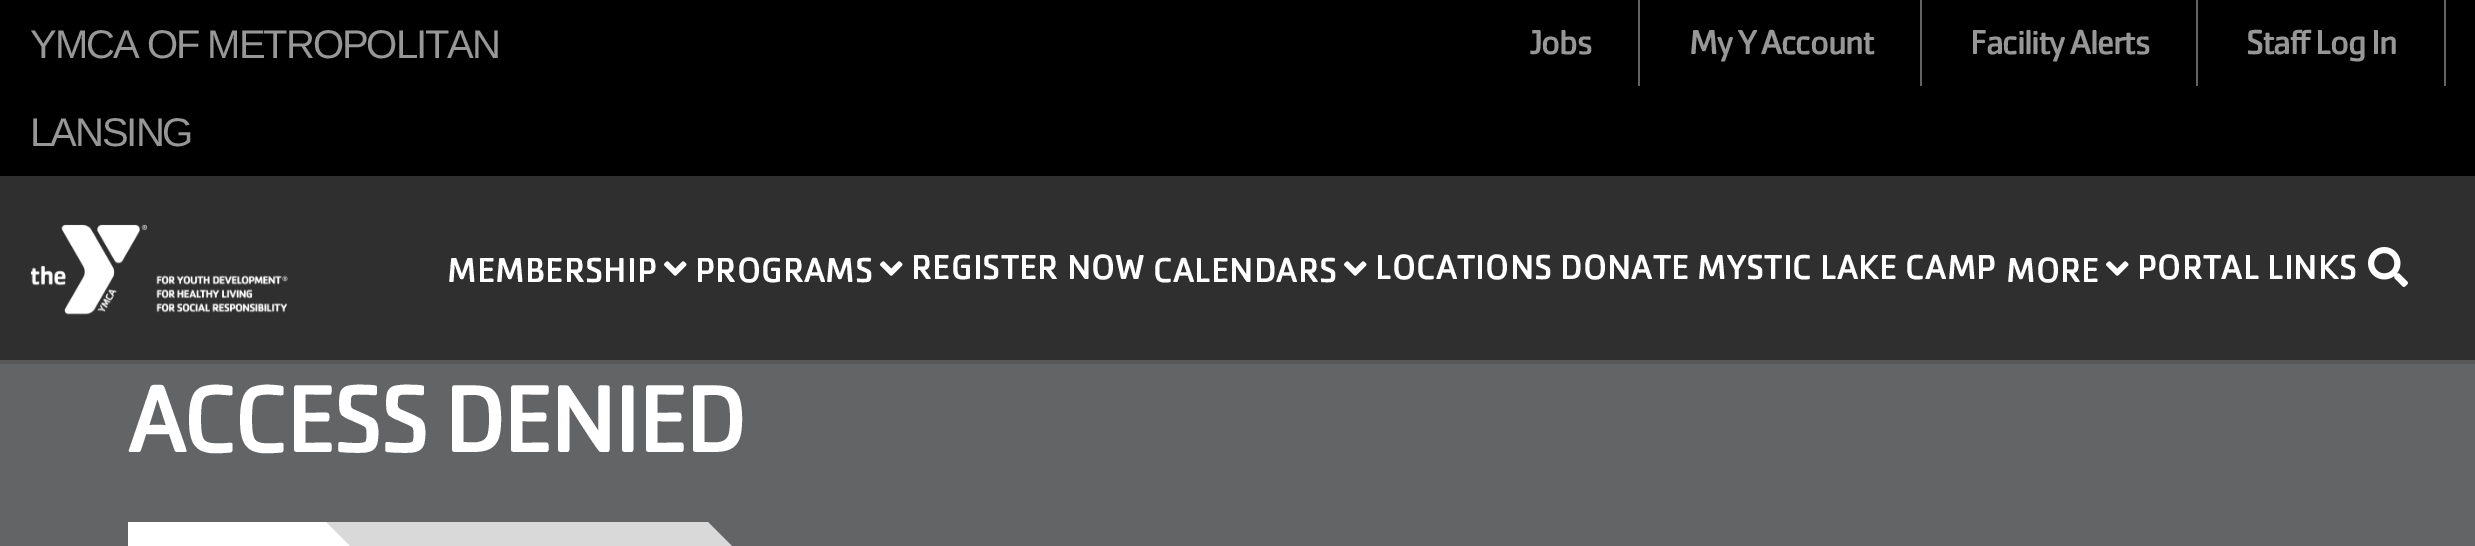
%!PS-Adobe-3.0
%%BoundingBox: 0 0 2475 546
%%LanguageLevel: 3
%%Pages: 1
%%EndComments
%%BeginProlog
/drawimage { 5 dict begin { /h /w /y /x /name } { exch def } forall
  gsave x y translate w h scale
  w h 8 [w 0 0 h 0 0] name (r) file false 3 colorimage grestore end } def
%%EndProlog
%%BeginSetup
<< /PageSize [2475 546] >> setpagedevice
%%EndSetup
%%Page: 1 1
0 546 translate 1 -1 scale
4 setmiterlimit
0.388 0.392 0.4 setrgbcolor
0 0 2475 546 rectfill
0.184 setgray
0 176 2475 184 rectfill
0.349 setgray
0 360 2475 4 rectfill
0 setgray
0 0 2475 176 rectfill
0.388 0.392 0.4 setrgbcolor
2444 0 2 86 rectfill
1638 0 2 86 rectfill
1920 0 2 86 rectfill
2196 0 2 86 rectfill
(images/1.raw) 30 224 258 91 drawimage
(images/2.raw) 664 261 23 15 drawimage
(images/2.raw) 880 261 23 15 drawimage
(images/2.raw) 1344 261 23 15 drawimage
(images/2.raw) 2106 261 23 15 drawimage
(images/3.raw) 2368 247 40 40 drawimage
1 setgray
128 522 198 24 rectfill
0.851 setgray
326 522 382 24 rectfill
1 setgray
newpath 326 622 moveto 326 522 lineto 376 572 lineto closepath fill
0.851 setgray
newpath 708 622 moveto 708 522 lineto 758 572 lineto closepath fill
/LiberationSans-Regular [40 0 0 -40 0 0] selectfont
0.592 setgray
30 58 moveto -2 0 (YMCA OF METROPOLITAN) ashow
30 146 moveto -2 0 (LANSING) ashow
/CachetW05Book-Regular [36 0 0 -36 0 0] selectfont
1529 54 moveto -1.75 0 (Jobs) ashow
1689 54 moveto -1.75 0 (My Y Account) ashow
1970 54 moveto -1.75 0 (Facility Alerts) ashow
2246 54 moveto -1.75 0 (Staff Log In) ashow
1 setgray
447 282 moveto (MEMBERSHIP) show
695 282 moveto (PROGRAMS) show
911 279 moveto (REGISTER NOW) show
1153 282 moveto (CALENDARS) show
1375 279 moveto (LOCATIONS DONATE MYSTIC LAKE CAMP) show
2006 282 moveto (MORE) show
2137 279 moveto (PORTAL LINKS) show
/CachetW05Book-Regular [100 0 0 -100 0 0] selectfont
128 452 moveto -4 0 (ACCESS DENIED) ashow
showpage
%%EOF
